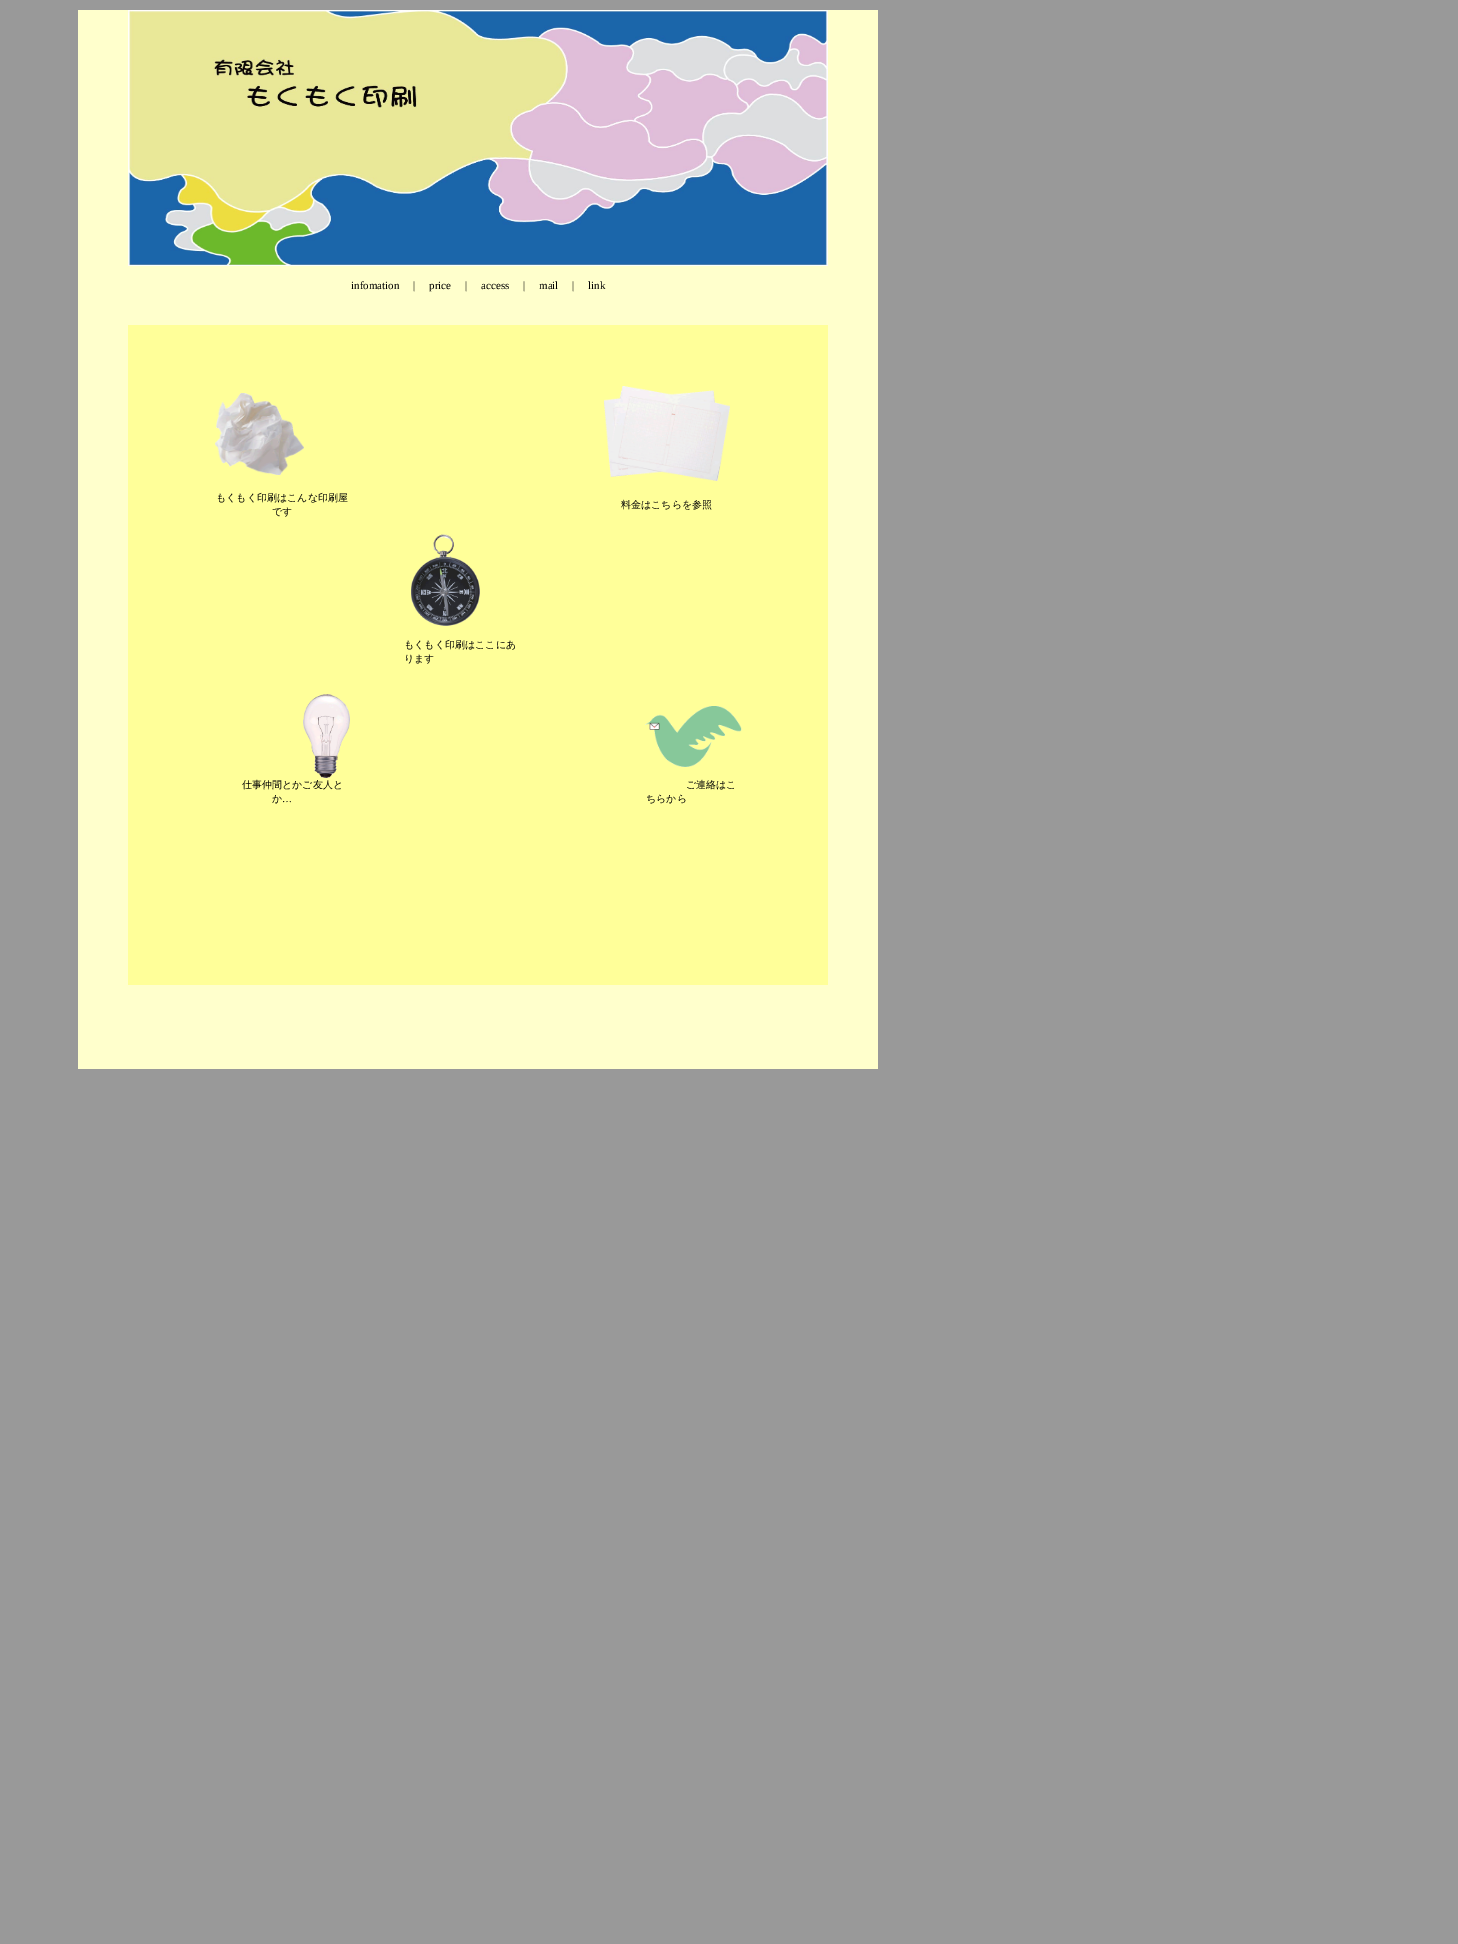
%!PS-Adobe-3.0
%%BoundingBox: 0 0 1458 1944
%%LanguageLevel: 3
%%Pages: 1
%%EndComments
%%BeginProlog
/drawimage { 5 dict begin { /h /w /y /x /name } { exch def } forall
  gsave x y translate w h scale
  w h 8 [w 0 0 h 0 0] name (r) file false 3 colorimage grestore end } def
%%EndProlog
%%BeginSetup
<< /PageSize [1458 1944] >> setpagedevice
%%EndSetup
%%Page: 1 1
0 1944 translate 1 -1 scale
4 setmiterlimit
0.6 setgray
0 0 1458 1944 rectfill
1 1 0.8 setrgbcolor
78 10 800 1059 rectfill
(images/1.raw) 128 10 700 256 drawimage
1 1 0.6 setrgbcolor
128 325 700 660 rectfill
(images/2.raw) 215 393 89 82 drawimage
(images/3.raw) 604 386 126 95 drawimage
(images/4.raw) 411 534 69 92 drawimage
(images/5.raw) 303 694 47 84 drawimage
(images/6.raw) 645 706 97 61 drawimage
/LiberationSerif-Regular [11 0 0 -11 0 0] selectfont
0 setgray
351 289 moveto (infomation) show
413 289 moveto (|) show
429 289 moveto (price) show
465 289 moveto (|) show
481 289 moveto (access) show
523 289 moveto (|) show
539 289 moveto (mail) show
572 289 moveto (|) show
588 289 moveto (link) show
/WenQuanYiZenHei-Medium [10 0 0 -10 0 0] selectfont
216 501 moveto (もくもく印刷はこんな印刷屋) show
272 515 moveto (です) show
621 508 moveto (料金はこちらを参照) show
404 648 moveto (もくもく印刷はここにあ) show
404 662 moveto (ります) show
242 788 moveto (仕事仲間とかご友人と) show
272 802 moveto (か) show
/LiberationSerif-Regular [10 0 0 -10 0 0] selectfont
282 802 moveto (…) show
/WenQuanYiZenHei-Medium [10 0 0 -10 0 0] selectfont
686 788 moveto (ご連絡はこ) show
646 802 moveto (ちらから) show
showpage
%%EOF
